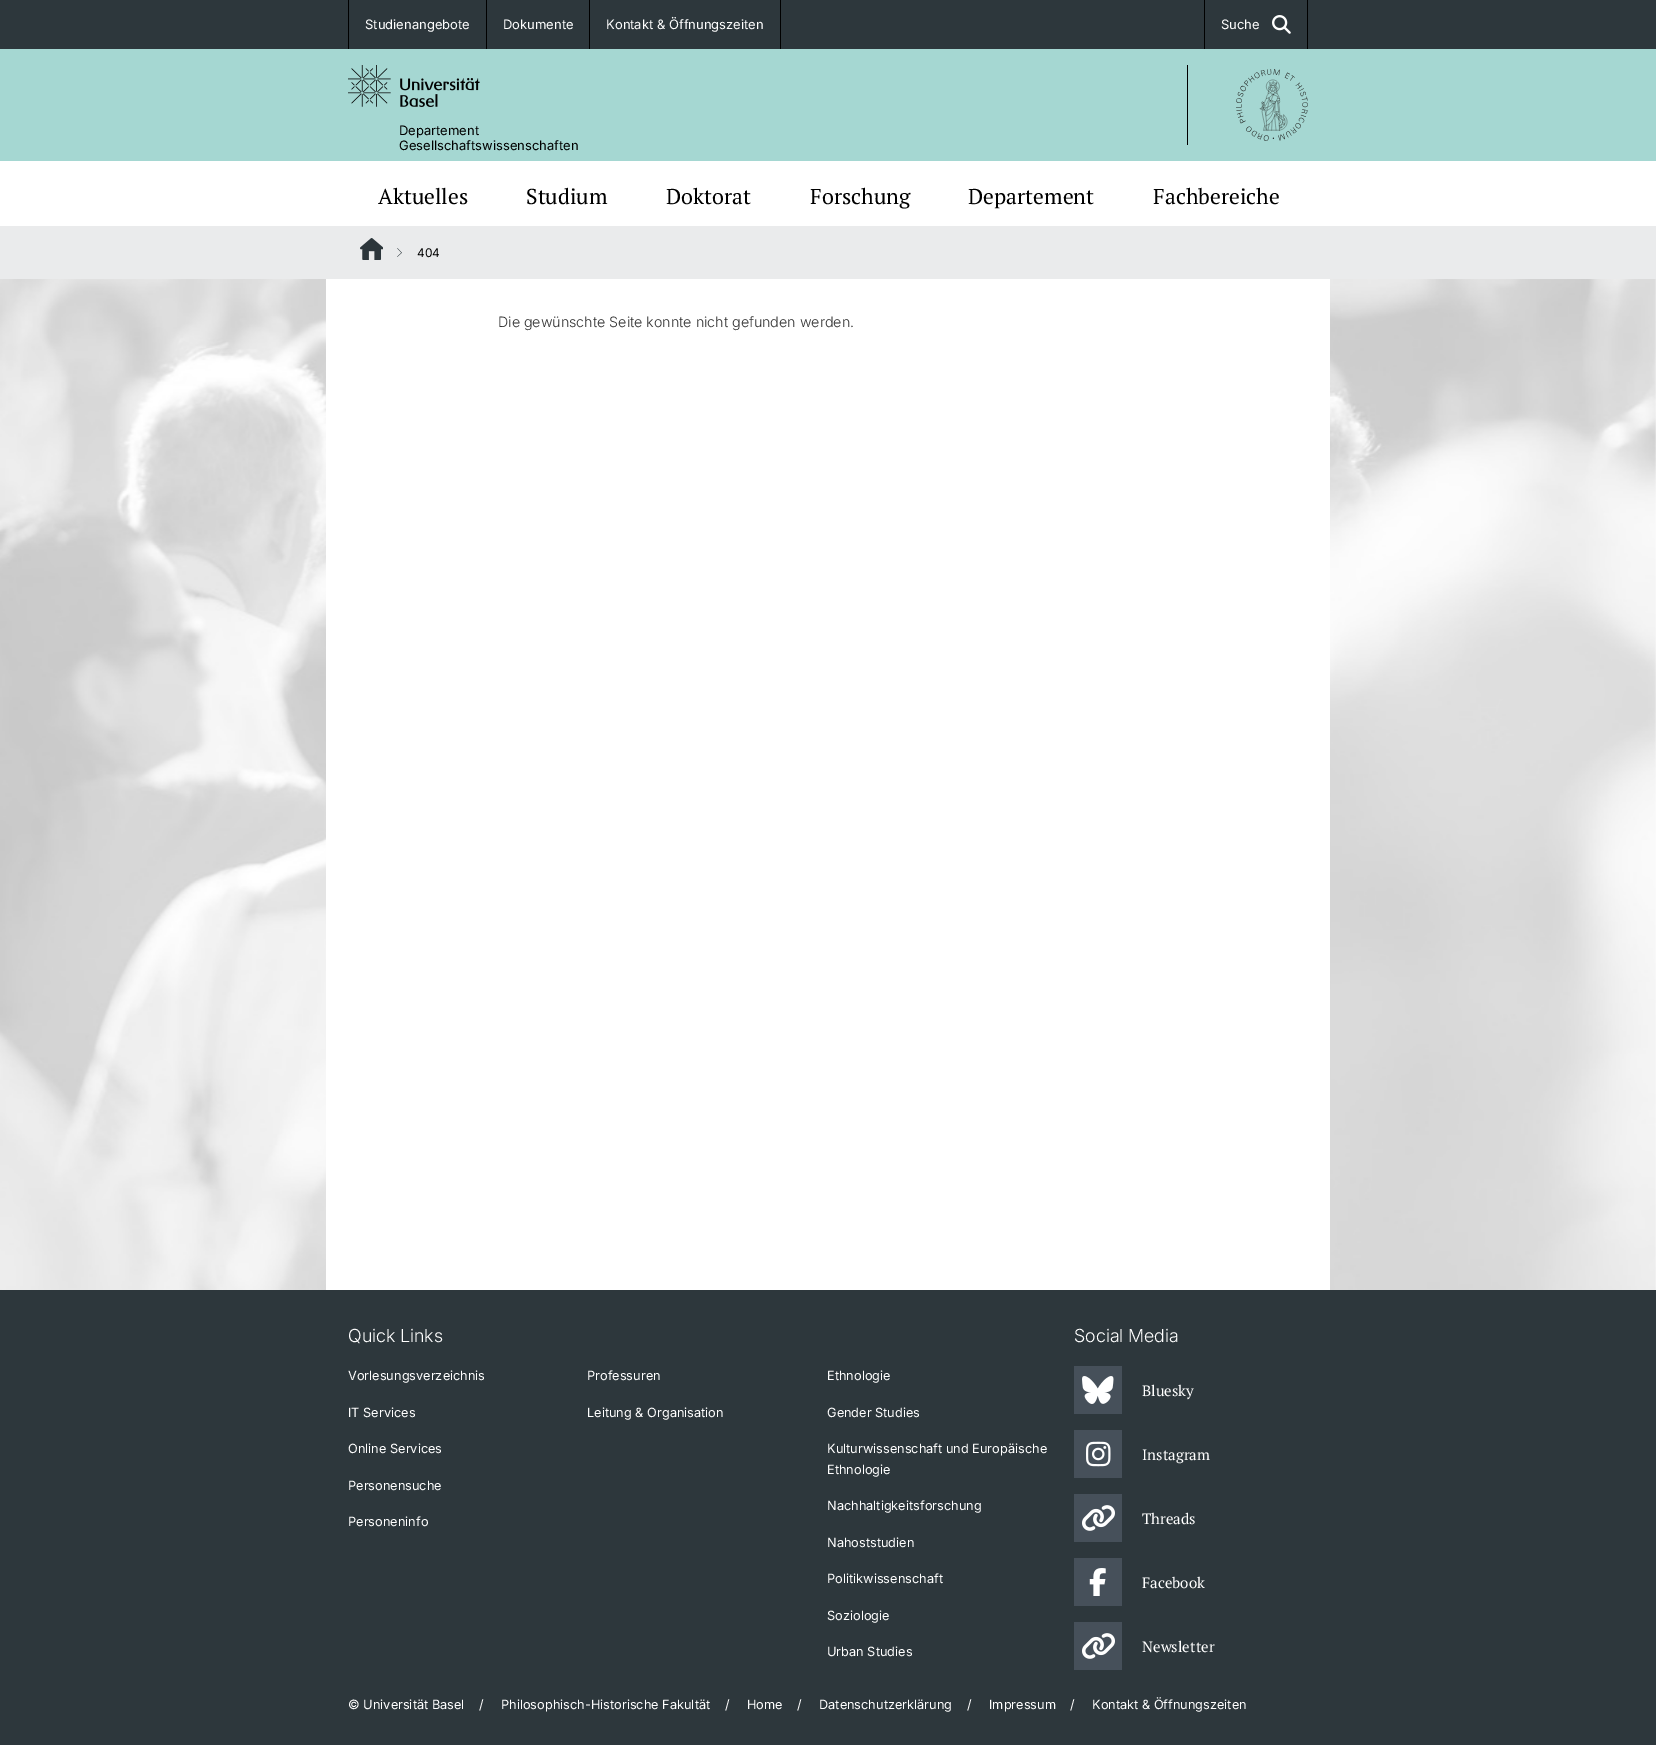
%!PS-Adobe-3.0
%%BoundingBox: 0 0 1656 1745
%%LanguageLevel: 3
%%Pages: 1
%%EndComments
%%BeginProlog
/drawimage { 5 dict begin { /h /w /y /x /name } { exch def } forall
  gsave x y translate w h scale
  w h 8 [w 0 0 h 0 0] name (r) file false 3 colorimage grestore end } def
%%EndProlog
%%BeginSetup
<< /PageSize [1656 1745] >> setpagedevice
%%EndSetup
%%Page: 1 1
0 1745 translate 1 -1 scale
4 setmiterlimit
1 setgray
0 0 1656 1745 rectfill
(images/1.raw) 0 279 1656 1011 drawimage
0.176 0.216 0.235 setrgbcolor
0 0 1656 49 rectfill
0 setgray
486 0 1 49 rectfill
348 0 1 49 rectfill
589 0 1 49 rectfill
780 0 1 49 rectfill
1307 0 1 49 rectfill
1204 0 1 49 rectfill
(images/2.raw) 1272 15 19 19 drawimage
0.647 0.843 0.824 setrgbcolor
0 49 1656 112 rectfill
(images/3.raw) 348 65 132 42 drawimage
0 setgray
1187 65 1 80 rectfill
(images/4.raw) 1236 69 72 72 drawimage
0.918 0.922 0.925 setrgbcolor
0 226 1656 53 rectfill
(images/5.raw) 360 238 23 22 drawimage
(images/6.raw) 397 248 5 9 drawimage
1 setgray
326 279 1004 1011 rectfill
0.176 0.216 0.235 setrgbcolor
0 1290 1656 455 rectfill
0.275 0.314 0.353 setrgbcolor
1074 1366 48 48 rectfill
(images/7.raw) 1082 1376 32 28 drawimage
1074 1430 48 48 rectfill
(images/8.raw) 1086 1441 25 26 drawimage
1074 1494 48 48 rectfill
(images/9.raw) 1082 1505 33 26 drawimage
1074 1558 48 48 rectfill
(images/10.raw) 1089 1568 17 28 drawimage
1074 1622 48 48 rectfill
(images/9.raw) 1082 1633 33 26 drawimage
/Inter-Regular [13 0 0 -13 0 0] selectfont
1 setgray
365 29 moveto (Studienangebote) show
503 29 moveto (Dokumente) show
606 29 moveto (Kontakt & Öffnungszeiten) show
1221 29 moveto (Suche) show
0 setgray
399 135 moveto (Departement) show
399 150 moveto (Gesellschaftswissenschaften) show
/PTSerif-Regular [21.5 0 0 -21.5 0 0] selectfont
378 204 moveto (Aktuelles) show
526 204 moveto (Studium) show
666 204 moveto (Doktorat) show
810 204 moveto (Forschung) show
968 204 moveto (Departement) show
1153 204 moveto (Fachbereiche) show
/Inter-Regular [12 0 0 -12 0 0] selectfont
417 257 moveto (404) show
/Inter-Light [14.25 0 0 -14.25 0 0] selectfont
0.2 setgray
498 327 moveto (Die gewünschte Seite konnte nicht gefunden werden.) show
/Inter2-Light [18 0 0 -18 0 0] selectfont
1 setgray
348 1342 moveto (Quick Links) show
/Inter-Regular [12.75 0 0 -12.75 0 0] selectfont
348 1380 moveto (Vorlesungsverzeichnis) show
348 1417 moveto (IT Services) show
348 1453 moveto (Online Services) show
348 1490 moveto (Personensuche) show
348 1526 moveto (Personeninfo) show
587 1380 moveto (Professuren) show
587 1417 moveto (Leitung & Organisation) show
827 1380 moveto (Ethnologie) show
827 1417 moveto (Gender Studies) show
827 1453 moveto (Kulturwissenschaft und Europäische) show
827 1474 moveto (Ethnologie) show
827 1510 moveto (Nachhaltigkeitsforschung) show
827 1547 moveto (Nahoststudien) show
827 1583 moveto (Politikwissenschaft) show
827 1620 moveto (Soziologie) show
827 1656 moveto (Urban Studies) show
/Inter2-Light [18 0 0 -18 0 0] selectfont
1074 1342 moveto (Social Media) show
/PTSerif-Regular [15 0 0 -15 0 0] selectfont
1142 1396 moveto (Bluesky) show
1142 1460 moveto (Instagram) show
1142 1524 moveto (Threads) show
1142 1588 moveto (Facebook) show
1142 1652 moveto (Newsletter) show
/Inter-Regular [12.75 0 0 -12.75 0 0] selectfont
348 1709 moveto (© Universität Basel) show
479 1709 moveto (/) show
501 1709 moveto (Philosophisch-Historische Fakultät) show
725 1709 moveto (/) show
747 1709 moveto (Home) show
797 1709 moveto (/) show
819 1709 moveto (Datenschutzerklärung) show
967 1709 moveto (/) show
989 1709 moveto (Impressum) show
1070 1709 moveto (/) show
1092 1709 moveto (Kontakt & Öffnungszeiten) show
showpage
%%EOF
